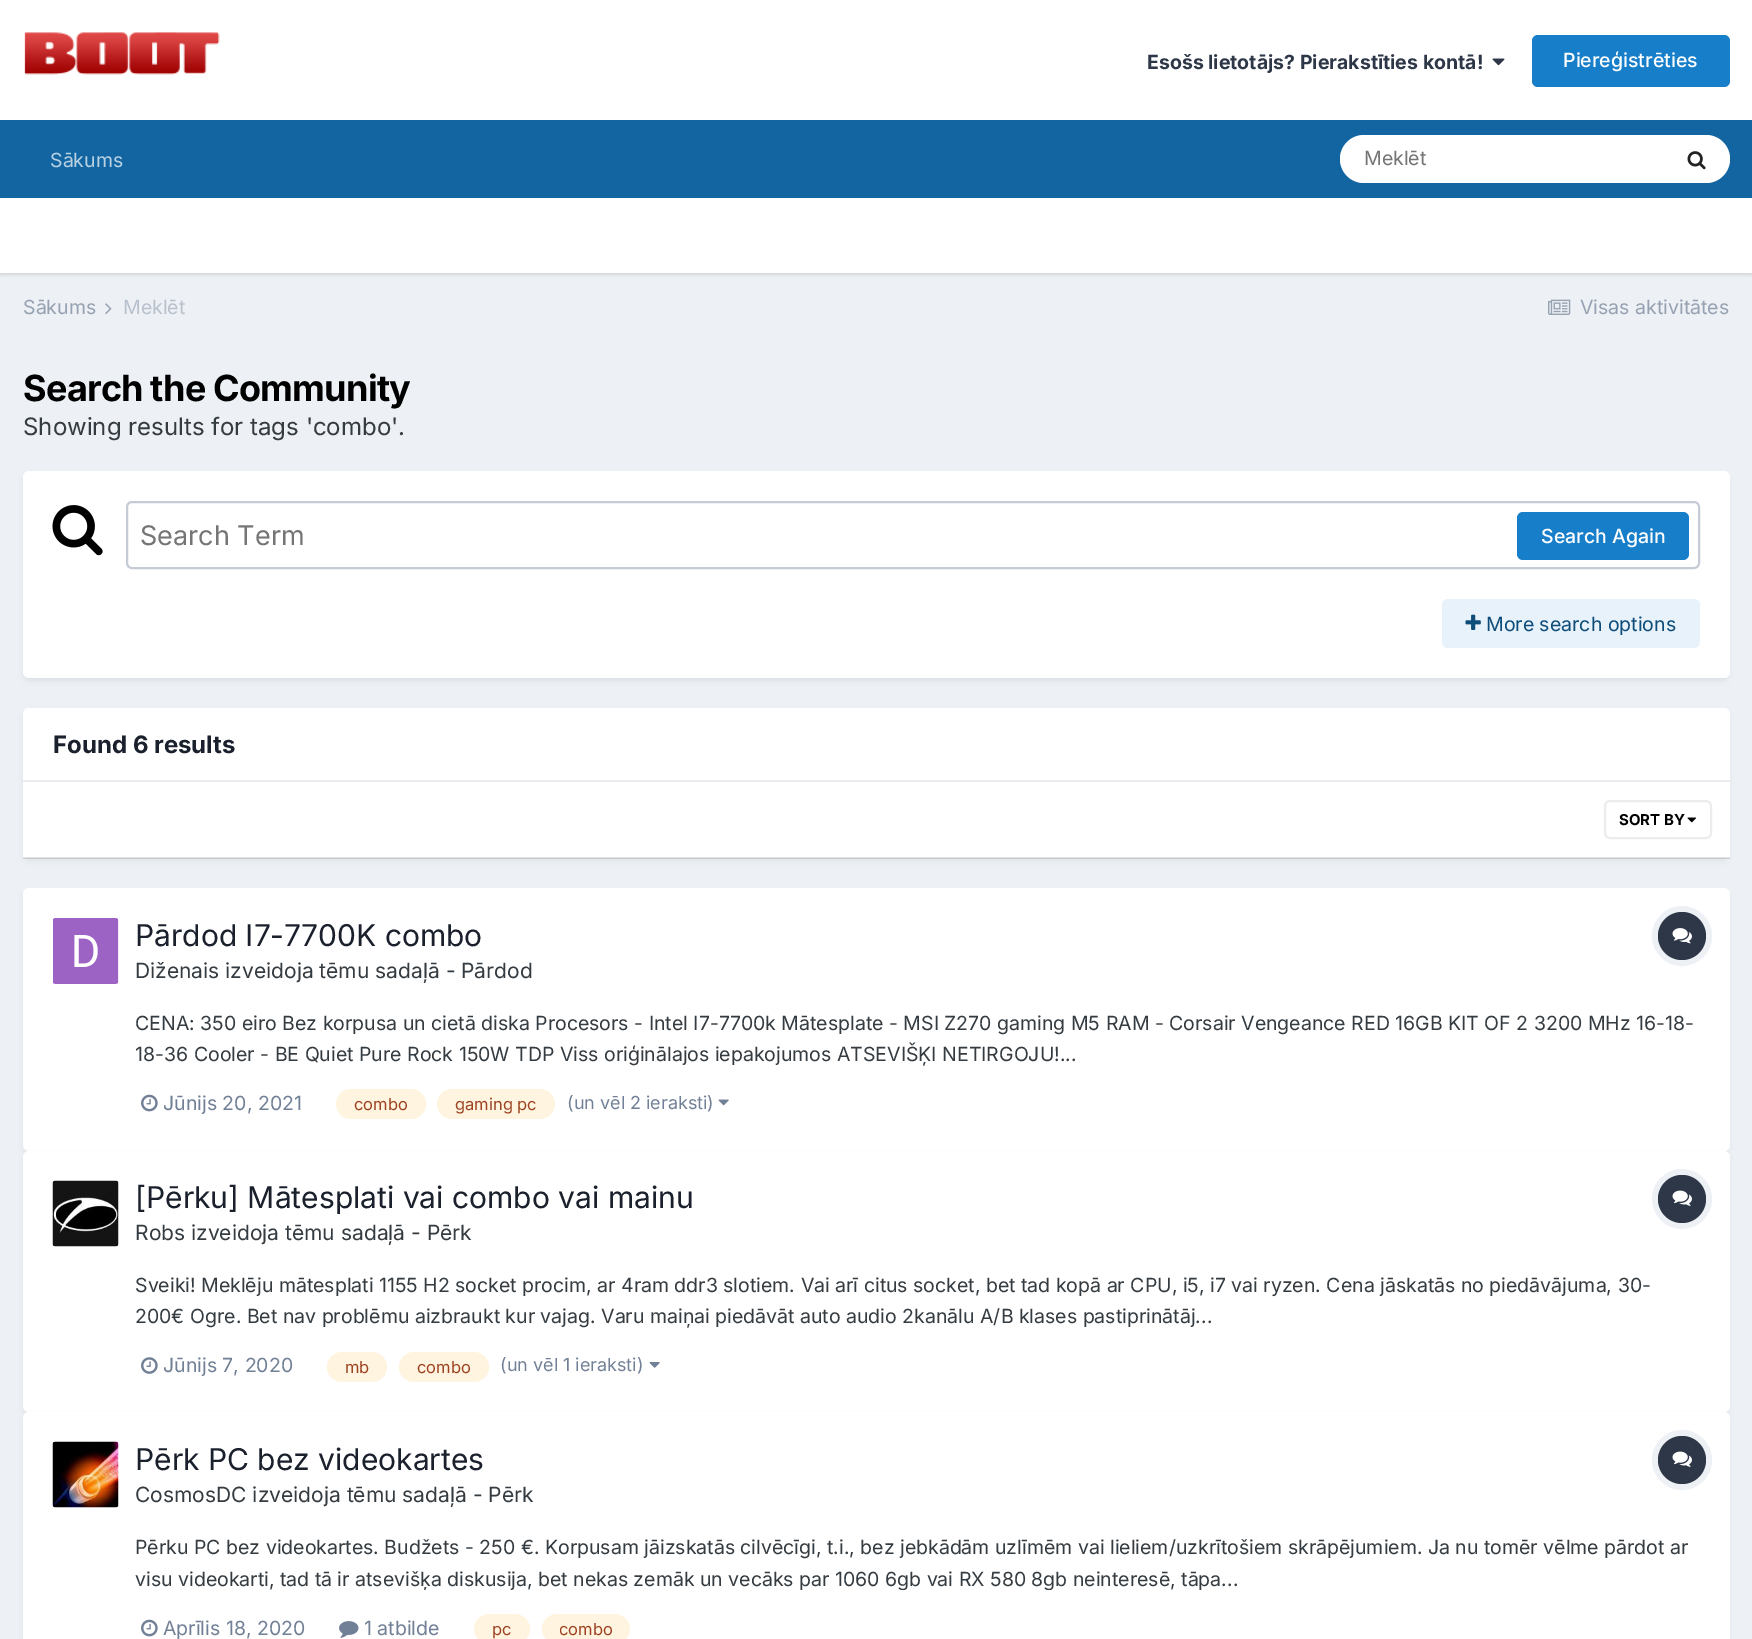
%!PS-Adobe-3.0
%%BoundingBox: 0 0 1752 1639
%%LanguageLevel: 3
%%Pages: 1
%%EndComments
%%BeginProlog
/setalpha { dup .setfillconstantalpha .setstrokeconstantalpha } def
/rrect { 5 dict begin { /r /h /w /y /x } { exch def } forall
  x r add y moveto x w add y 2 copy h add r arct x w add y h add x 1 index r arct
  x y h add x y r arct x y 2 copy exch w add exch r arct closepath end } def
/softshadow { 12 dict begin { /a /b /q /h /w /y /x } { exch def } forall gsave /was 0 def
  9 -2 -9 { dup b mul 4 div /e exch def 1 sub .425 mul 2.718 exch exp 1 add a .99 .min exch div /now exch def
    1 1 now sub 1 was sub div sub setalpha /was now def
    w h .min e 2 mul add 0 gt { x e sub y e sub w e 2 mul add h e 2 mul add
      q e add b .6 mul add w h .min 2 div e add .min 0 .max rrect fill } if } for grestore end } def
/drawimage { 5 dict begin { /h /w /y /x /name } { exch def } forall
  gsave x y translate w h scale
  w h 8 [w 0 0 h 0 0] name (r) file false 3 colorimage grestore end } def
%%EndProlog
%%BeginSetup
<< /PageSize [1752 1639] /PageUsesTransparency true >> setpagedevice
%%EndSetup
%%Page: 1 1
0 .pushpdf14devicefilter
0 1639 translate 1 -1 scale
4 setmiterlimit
0.929 0.941 0.957 setrgbcolor
0 0 1752 1639 rectfill
1 setgray
0 0 1752 120 rectfill
(images/1.raw) 24 32 196 43 drawimage
(images/2.raw) 1492 58 13 8 drawimage
0.09 0.494 0.788 setrgbcolor
1532 35 198 52 6 rrect fill
0.071 0.396 0.631 setrgbcolor
0 120 1752 78 rectfill
1 setgray
1340 135 390 48 24 rrect fill
(images/3.raw) 1687 151 19 19 drawimage
0 setgray
0 200 1752 75 0 1.5 0.1 softshadow
1 setgray
0 198 1752 75 rectfill
(images/4.raw) 105 303 7 11 drawimage
(images/5.raw) 1548 299 23 16 drawimage
0.176 0.216 0.282 setrgbcolor
24 476 1704 204 5 3 0.1 softshadow
1 setgray
23 471 1707 207 6 rrect fill
(images/6.raw) 52 505 51 51 drawimage
0.776 0.8 0.835 setrgbcolor
2 setlinewidth
127 502 1572 66 5 rrect stroke
0.09 0.494 0.788 setrgbcolor
1517 512 172 48 6 rrect fill
0.91 0.949 0.98 setrgbcolor
1442 599 258 49 6 rrect fill
(images/7.raw) 1465 614 16 16 drawimage
0.176 0.216 0.282 setrgbcolor
24 713 1704 147 5 3 0.1 softshadow
1 setgray
newpath 29 708 moveto 1724 708 lineto 1727.5 708 1730 710.5 1730 714 curveto 1730 782 lineto 23 782 lineto 23 714 lineto 23 710.5 25.5 708 29 708 curveto closepath fill
0.918 0.925 0.937 setrgbcolor
23 780 1707 2 rectfill
1 setgray
23 782 1707 76 rectfill
0.15 setalpha
0.208 0.235 0.255 setrgbcolor
23 857 1707 2 rectfill
1 setalpha
(images/8.raw) 1687 817 9 6 drawimage
0.922 0.925 0.925 setrgbcolor
1605 801 106 37 5 rrect stroke
0.176 0.216 0.282 setrgbcolor
24 893 1704 259 5 3 0.1 softshadow
1 setgray
23 888 1707 263 6 rrect fill
(images/9.raw) 53 918 66 66 drawimage
0.929 0.941 0.957 setrgbcolor
6 setlinewidth
newpath 1682 936 27 0 360 arc closepath stroke
0.176 0.216 0.282 setrgbcolor
newpath 1682 936 24 0 360 arc closepath fill
(images/10.raw) 1672 928 20 16 drawimage
(images/11.raw) 141 1094 17 18 drawimage
1 0.957 0.875 setrgbcolor
336 1089 90 30 15 rrect fill
437 1089 118 30 15 rrect fill
(images/12.raw) 718 1099 11 7 drawimage
0.176 0.216 0.282 setrgbcolor
24 1155 1704 258 5 3 0.1 softshadow
1 setgray
23 1151 1707 261 6 rrect fill
(images/13.raw) 52 1180 67 67 drawimage
0.929 0.941 0.957 setrgbcolor
newpath 1682 1199 27 0 360 arc closepath stroke
0.176 0.216 0.282 setrgbcolor
newpath 1682 1199 24 0 360 arc closepath fill
(images/14.raw) 1672 1190 20 16 drawimage
(images/15.raw) 141 1357 17 17 drawimage
1 0.957 0.875 setrgbcolor
327 1352 60 30 15 rrect fill
399 1352 90 30 15 rrect fill
(images/16.raw) 649 1362 11 6 drawimage
0.176 0.216 0.282 setrgbcolor
24 1416 1704 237 5 3 0.1 softshadow
1 setgray
23 1412 1707 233 6 rrect fill
(images/17.raw) 52 1441 67 67 drawimage
0.929 0.941 0.957 setrgbcolor
newpath 1682 1460 27 0 360 arc closepath stroke
0.176 0.216 0.282 setrgbcolor
newpath 1682 1460 24 0 360 arc closepath fill
(images/14.raw) 1672 1451 20 16 drawimage
(images/11.raw) 141 1619 17 18 drawimage
(images/18.raw) 339 1621 20 17 drawimage
1 0.957 0.875 setrgbcolor
474 1614 56 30 15 rrect fill
542 1614 88 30 15 rrect fill
/Inter-Bold [19.5 0 0 -19.5 0 0] selectfont
0.176 0.216 0.282 setrgbcolor
1147 69 moveto (Esošs lietotājs? Pierakstīties kontā!) show
/Inter-Medium [19.5 0 0 -19.5 0 0] selectfont
1 setgray
1563 67 moveto (Piereģistrēties) show
/Inter-Regular [19.5 0 0 -19.5 0 0] selectfont
0.722 0.82 0.89 setrgbcolor
50 167 moveto (Sākums) show
0.459 setgray
1364 165 moveto (Meklēt) show
0.588 0.635 0.698 setrgbcolor
23 314 moveto (Sākums) show
0.725 0.757 0.804 setrgbcolor
123 314 moveto (Meklēt) show
0.588 0.635 0.698 setrgbcolor
1580 314 moveto (Visas aktivitātes) show
/Inter-Bold [36 0 0 -36 0 0] selectfont
0 setgray
23 401 moveto -0.75 0 (Search the Community) ashow
/Inter-Regular [24 0 0 -24 0 0] selectfont
0.208 0.235 0.255 setrgbcolor
23 435 moveto (Showing results for tags 'combo'.) show
/Inter-Regular [27 0 0 -27 0 0] selectfont
0.459 setgray
140 545 moveto (Search Term) show
/Inter-Medium [19.5 0 0 -19.5 0 0] selectfont
1 setgray
1541 543 moveto (Search Again) show
/Inter-Regular [19.5 0 0 -19.5 0 0] selectfont
0.055 0.298 0.475 setrgbcolor
1486 631 moveto (More search options) show
/Inter-Bold [24 0 0 -24 0 0] selectfont
0.102 0.125 0.173 setrgbcolor
53 753 moveto (Found 6 results) show
/Inter-Bold [15 0 0 -15 0 0] selectfont
0 setgray
1619 825 moveto (SORT BY) show
/Inter-Regular [30 0 0 -30 0 0] selectfont
0.102 0.125 0.173 setrgbcolor
135 946 moveto (Pārdod I7-7700K combo) show
/Inter-Regular [21 0 0 -21 0 0] selectfont
0.208 0.235 0.255 setrgbcolor
135 978 moveto (Diženais izveidoja tēmu sadaļā - Pārdod) show
/Inter-Regular [19.5 0 0 -19.5 0 0] selectfont
135 1030 moveto (CENA: 350 eiro Bez korpusa un cietā diska Procesors - Intel I7-7700k Mātesplate - MSI Z270 gaming M5 RAM - Corsair Vengeance RED 16GB KIT OF 2 3200 MHz 16-18-) show
135 1061 moveto (18-36 Cooler - BE Quiet Pure Rock 150W TDP Viss oriģinālajos iepakojumos ATSEVIŠĶI NETIRGOJU!...) show
0.443 0.502 0.588 setrgbcolor
163 1110 moveto (Jūnijs 20, 2021) show
/Inter-Regular [16.5 0 0 -16.5 0 0] selectfont
0.612 0.259 0.129 setrgbcolor
354 1110 moveto (combo) show
455 1110 moveto (gaming pc) show
/Inter-Regular [18 0 0 -18 0 0] selectfont
0.443 0.502 0.588 setrgbcolor
567 1109 moveto (\(un vēl 2 ieraksti\)) show
/Inter-Regular [30 0 0 -30 0 0] selectfont
0.102 0.125 0.173 setrgbcolor
135 1208 moveto ([Pērku] Mātesplati vai combo vai mainu) show
/Inter-Regular [21 0 0 -21 0 0] selectfont
0.208 0.235 0.255 setrgbcolor
135 1240 moveto (Robs izveidoja tēmu sadaļā - Pērk) show
/Inter-Regular [19.5 0 0 -19.5 0 0] selectfont
135 1292 moveto (Sveiki! Meklēju mātesplati 1155 H2 socket procim, ar 4ram ddr3 slotiem. Vai arī citus socket, bet tad kopā ar CPU, i5, i7 vai ryzen. Cena jāskatās no piedāvājuma, 30-) show
135 1323 moveto (200€ Ogre. Bet nav problēmu aizbraukt kur vajag. Varu maiņai piedāvāt auto audio 2kanālu A/B klases pastiprinātāj...) show
0.443 0.502 0.588 setrgbcolor
163 1372 moveto (Jūnijs 7, 2020) show
/Inter-Regular [16.5 0 0 -16.5 0 0] selectfont
0.612 0.259 0.129 setrgbcolor
345 1373 moveto (mb) show
417 1373 moveto (combo) show
/Inter-Regular [18 0 0 -18 0 0] selectfont
0.443 0.502 0.588 setrgbcolor
500 1371 moveto (\(un vēl 1 ieraksti\)) show
/Inter-Regular [30 0 0 -30 0 0] selectfont
0.102 0.125 0.173 setrgbcolor
135 1470 moveto (Pērk PC bez videokartes) show
/Inter-Regular [21 0 0 -21 0 0] selectfont
0.208 0.235 0.255 setrgbcolor
135 1502 moveto (CosmosDC izveidoja tēmu sadaļā - Pērk) show
/Inter-Regular [19.5 0 0 -19.5 0 0] selectfont
135 1554 moveto (Pērku PC bez videokartes. Budžets - 250 €. Korpusam jāizskatās cilvēcīgi, t.i., bez jebkādām uzlīmēm vai lieliem/uzkrītošiem skrāpējumiem. Ja nu tomēr vēlme pārdot ar) show
gsave
135 1532 1565 58 rectclip
135 1586 moveto (visu videokarti, tad tā ir atsevišķa diskusija, bet nekas zemāk un vecāks par 1060 6gb vai RX 580 8gb neinteresē, tāpa...) show
grestore
0.443 0.502 0.588 setrgbcolor
163 1635 moveto (Aprīlis 18, 2020) show
364 1635 moveto (1 atbilde) show
/Inter-Regular [16.5 0 0 -16.5 0 0] selectfont
0.612 0.259 0.129 setrgbcolor
492 1635 moveto (pc) show
gsave
560 1614 52 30 rectclip
559 1635 moveto (combo) show
grestore
.poppdf14devicefilter showpage
%%EOF
